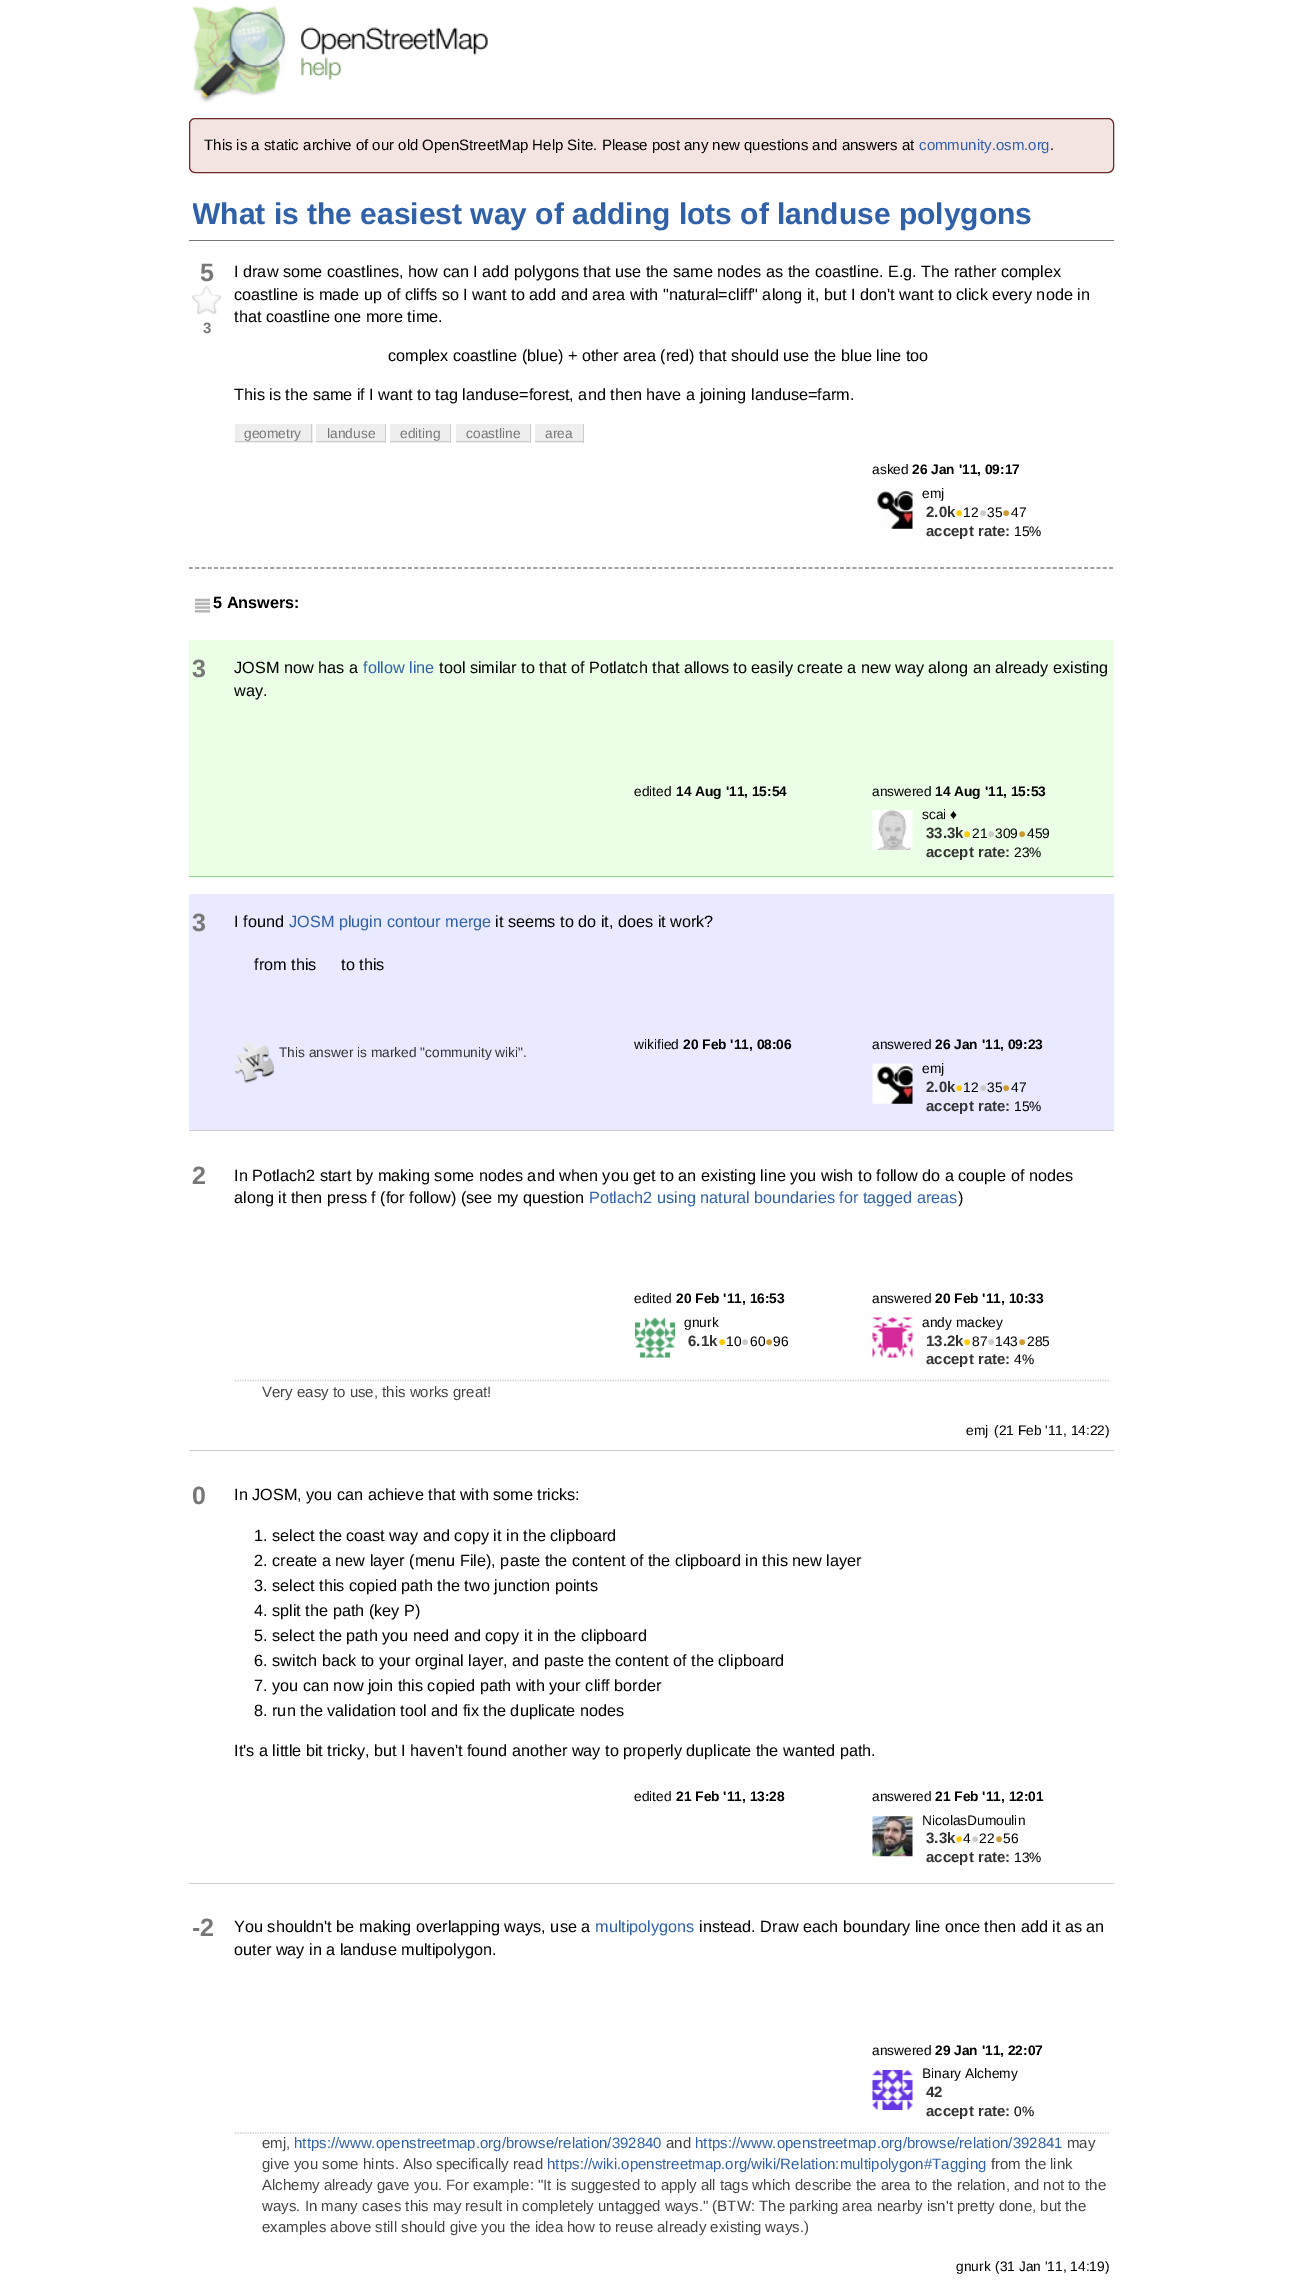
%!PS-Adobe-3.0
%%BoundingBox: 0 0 1301 2284
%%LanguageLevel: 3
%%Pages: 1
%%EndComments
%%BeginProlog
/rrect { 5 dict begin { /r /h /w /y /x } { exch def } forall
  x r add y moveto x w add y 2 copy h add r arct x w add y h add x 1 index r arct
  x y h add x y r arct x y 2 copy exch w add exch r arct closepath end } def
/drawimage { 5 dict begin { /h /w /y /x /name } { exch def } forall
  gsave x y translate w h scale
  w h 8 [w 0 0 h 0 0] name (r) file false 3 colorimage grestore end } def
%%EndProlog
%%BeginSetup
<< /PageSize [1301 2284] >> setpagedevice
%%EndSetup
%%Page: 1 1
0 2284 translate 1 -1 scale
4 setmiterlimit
1 setgray
0 0 1301 2284 rectfill
(images/1.raw) 192 6 296 97 drawimage
0.953 0.89 0.882 setrgbcolor
189.5 118.5 924 54 5.5 rrect gsave fill grestore
0.42 0.169 0.157 setrgbcolor
stroke
0.467 setgray
189 240 925 1 rectfill
(images/2.raw) 192 286 30 28 drawimage
0.933 setgray
235 424 78 19 rectfill
0.8 setgray
311 424 1 19 rectfill
235 441 78 1 rectfill
0.933 setgray
316 424 69 19 rectfill
0.8 setgray
385 424 1 19 rectfill
316 441 70 1 rectfill
0.933 setgray
390 424 60 19 rectfill
0.8 setgray
450 424 1 19 rectfill
390 441 61 1 rectfill
0.933 setgray
456 424 74 19 rectfill
0.8 setgray
530 424 1 19 rectfill
456 441 75 1 rectfill
0.933 setgray
535 424 48 19 rectfill
0.8 setgray
583 424 1 19 rectfill
535 441 49 1 rectfill
(images/3.raw) 872 489 41 40 drawimage
0.502 setgray
1.2 setlinewidth
[3.75 2.51] 0 setdash
newpath 189 568 moveto 1114 568 lineto stroke
(images/4.raw) 195 598 15 15 drawimage
0.922 1 0.902 setrgbcolor
189 640 925 238 rectfill
0.608 0.835 0.608 setrgbcolor
189 876 925 1 rectfill
(images/5.raw) 872 810 41 40 drawimage
0.914 0.914 1 setrgbcolor
189 894 925 236 rectfill
0.8 0.8 0.808 setrgbcolor
189 1130 925 1 rectfill
(images/6.raw) 235 1042 40 41 drawimage
(images/7.raw) 872 1063 41 41 drawimage
189 1450 925 1 rectfill
(images/8.raw) 635 1317 40 41 drawimage
(images/9.raw) 872 1317 41 41 drawimage
[1.25 1.25] 0 setdash
newpath 235 1380.5 moveto 1110 1380.5 lineto stroke
189 1883 925 1 rectfill
(images/10.raw) 872 1816 41 41 drawimage
(images/11.raw) 872 2070 41 40 drawimage
newpath 235 2133 moveto 1110 2133 lineto stroke
/LiberationSans-Regular [15 0 0 -15 0 0] selectfont
0 setgray
204 150 moveto (This is a static archive of our old OpenStreetMap Help Site. Please post any new questions and answers at) show
0.188 0.376 0.659 setrgbcolor
919 150 moveto (community.osm.org) show
0 setgray
1050 150 moveto (.) show
gsave
193 191 917 45 rectclip
/LiberationSans-Bold [30 0 0 -30 0 0] selectfont
0.188 0.376 0.659 setrgbcolor
192 224 moveto (What is the easiest way of adding lots of landuse polygons) show
grestore
/LiberationSans-Bold [25 0 0 -25 0 0] selectfont
0.467 setgray
200 281 moveto (5) show
/LiberationSans-Bold [15 0 0 -15 0 0] selectfont
203 333 moveto (3) show
/LiberationSans-Regular [16.25 0 0 -16.25 0 0] selectfont
0 setgray
234 277 moveto (I draw some coastlines, how can I add polygons that use the same nodes as the coastline. E.g. The rather complex) show
234 300 moveto (coastline is made up of cliffs so I want to add and area with "natural=cliff" along it, but I don't want to click every node in) show
234 322 moveto (that coastline one more time.) show
388 361 moveto (complex coastline \(blue\) + other area \(red\) that should use the blue line too) show
234 400 moveto (This is the same if I want to tag landuse=forest, and then have a joining landuse=farm.) show
/LiberationSans-Regular [13.75 0 0 -13.75 0 0] selectfont
0.467 setgray
244 438 moveto (geometry) show
327 438 moveto (landuse) show
400 438 moveto (editing) show
466 438 moveto (coastline) show
545 438 moveto (area) show
0 setgray
872 474 moveto (asked) show
/LiberationSans-Bold [13.75 0 0 -13.75 0 0] selectfont
912 474 moveto (26 Jan '11, 09:17) show
/LiberationSans-Regular [13.75 0 0 -13.75 0 0] selectfont
922 498 moveto (emj) show
/LiberationSans-Bold [15 0 0 -15 0 0] selectfont
0.2 setgray
926 517 moveto (2.0k) show
/LiberationSans-Regular [13.75 0 0 -13.75 0 0] selectfont
1 0.8 0 setrgbcolor
955 517 moveto (●) show
0 setgray
963 517 moveto (12) show
0.8 setgray
979 517 moveto (●) show
0 setgray
987 517 moveto (35) show
0.8 0.6 0.2 setrgbcolor
1002 517 moveto (●) show
0 setgray
1011 517 moveto (47) show
/LiberationSans-Bold [15 0 0 -15 0 0] selectfont
0.2 setgray
926 536 moveto (accept rate:) show
/LiberationSans-Regular [13.75 0 0 -13.75 0 0] selectfont
0 setgray
1014 536 moveto (15%) show
/LiberationSans-Bold [16.25 0 0 -16.25 0 0] selectfont
213 608 moveto (5 Answers:) show
/LiberationSans-Bold [25 0 0 -25 0 0] selectfont
0.467 setgray
192 677 moveto (3) show
/LiberationSans-Regular [16.25 0 0 -16.25 0 0] selectfont
0 setgray
234 673 moveto (JOSM now has a) show
0.188 0.376 0.659 setrgbcolor
363 673 moveto (follow line) show
0 setgray
439 673 moveto (tool similar to that of Potlatch that allows to easily create a new way along an already existing) show
234 696 moveto (way.) show
/LiberationSans-Regular [13.75 0 0 -13.75 0 0] selectfont
634 796 moveto (edited) show
/LiberationSans-Bold [13.75 0 0 -13.75 0 0] selectfont
676 796 moveto (14 Aug '11, 15:54) show
/LiberationSans-Regular [13.75 0 0 -13.75 0 0] selectfont
872 796 moveto (answered) show
/LiberationSans-Bold [13.75 0 0 -13.75 0 0] selectfont
935 796 moveto (14 Aug '11, 15:53) show
/LiberationSans-Regular [13.75 0 0 -13.75 0 0] selectfont
922 819 moveto (scai ♦) show
/LiberationSans-Bold [15 0 0 -15 0 0] selectfont
0.2 setgray
926 838 moveto (33.3k) show
/LiberationSans-Regular [13.75 0 0 -13.75 0 0] selectfont
1 0.8 0 setrgbcolor
963 838 moveto (●) show
0 setgray
972 838 moveto (21) show
0.8 setgray
987 838 moveto (●) show
0 setgray
995 838 moveto (309) show
0.8 0.6 0.2 setrgbcolor
1018 838 moveto (●) show
0 setgray
1027 838 moveto (459) show
/LiberationSans-Bold [15 0 0 -15 0 0] selectfont
0.2 setgray
926 857 moveto (accept rate:) show
/LiberationSans-Regular [13.75 0 0 -13.75 0 0] selectfont
0 setgray
1014 857 moveto (23%) show
/LiberationSans-Bold [25 0 0 -25 0 0] selectfont
0.467 setgray
192 931 moveto (3) show
/LiberationSans-Regular [16.25 0 0 -16.25 0 0] selectfont
0 setgray
234 927 moveto (I found) show
0.188 0.376 0.659 setrgbcolor
289 927 moveto (JOSM plugin contour merge) show
0 setgray
495 927 moveto (it seems to do it, does it work?) show
254 970 moveto (from this) show
341 970 moveto (to this) show
/LiberationSans-Regular [13.75 0 0 -13.75 0 0] selectfont
0.2 setgray
279 1057 moveto (This answer is marked "community wiki".) show
0 setgray
634 1049 moveto (wikified) show
/LiberationSans-Bold [13.75 0 0 -13.75 0 0] selectfont
683 1049 moveto (20 Feb '11, 08:06) show
/LiberationSans-Regular [13.75 0 0 -13.75 0 0] selectfont
872 1049 moveto (answered) show
/LiberationSans-Bold [13.75 0 0 -13.75 0 0] selectfont
935 1049 moveto (26 Jan '11, 09:23) show
/LiberationSans-Regular [13.75 0 0 -13.75 0 0] selectfont
922 1073 moveto (emj) show
/LiberationSans-Bold [15 0 0 -15 0 0] selectfont
0.2 setgray
926 1092 moveto (2.0k) show
/LiberationSans-Regular [13.75 0 0 -13.75 0 0] selectfont
1 0.8 0 setrgbcolor
955 1092 moveto (●) show
0 setgray
963 1092 moveto (12) show
0.8 setgray
979 1092 moveto (●) show
0 setgray
987 1092 moveto (35) show
0.8 0.6 0.2 setrgbcolor
1002 1092 moveto (●) show
0 setgray
1011 1092 moveto (47) show
/LiberationSans-Bold [15 0 0 -15 0 0] selectfont
0.2 setgray
926 1111 moveto (accept rate:) show
/LiberationSans-Regular [13.75 0 0 -13.75 0 0] selectfont
0 setgray
1014 1111 moveto (15%) show
/LiberationSans-Bold [25 0 0 -25 0 0] selectfont
0.467 setgray
192 1184 moveto (2) show
/LiberationSans-Regular [16.25 0 0 -16.25 0 0] selectfont
0 setgray
234 1181 moveto (In Potlach2 start by making some nodes and when you get to an existing line you wish to follow do a couple of nodes) show
234 1203 moveto (along it then press f \(for follow\) \(see my question) show
0.188 0.376 0.659 setrgbcolor
589 1203 moveto (Potlach2 using natural boundaries for tagged areas) show
0 setgray
958 1203 moveto (\)) show
/LiberationSans-Regular [13.75 0 0 -13.75 0 0] selectfont
634 1303 moveto (edited) show
/LiberationSans-Bold [13.75 0 0 -13.75 0 0] selectfont
676 1303 moveto (20 Feb '11, 16:53) show
/LiberationSans-Regular [13.75 0 0 -13.75 0 0] selectfont
684 1327 moveto (gnurk) show
/LiberationSans-Bold [15 0 0 -15 0 0] selectfont
0.2 setgray
688 1346 moveto (6.1k) show
/LiberationSans-Regular [13.75 0 0 -13.75 0 0] selectfont
1 0.8 0 setrgbcolor
718 1346 moveto (●) show
0 setgray
726 1346 moveto (10) show
0.8 setgray
741 1346 moveto (●) show
0 setgray
750 1346 moveto (60) show
0.8 0.6 0.2 setrgbcolor
765 1346 moveto (●) show
0 setgray
773 1346 moveto (96) show
872 1303 moveto (answered) show
/LiberationSans-Bold [13.75 0 0 -13.75 0 0] selectfont
935 1303 moveto (20 Feb '11, 10:33) show
/LiberationSans-Regular [13.75 0 0 -13.75 0 0] selectfont
922 1327 moveto (andy mackey) show
/LiberationSans-Bold [15 0 0 -15 0 0] selectfont
0.2 setgray
926 1346 moveto (13.2k) show
/LiberationSans-Regular [13.75 0 0 -13.75 0 0] selectfont
1 0.8 0 setrgbcolor
963 1346 moveto (●) show
0 setgray
972 1346 moveto (87) show
0.8 setgray
987 1346 moveto (●) show
0 setgray
995 1346 moveto (143) show
0.8 0.6 0.2 setrgbcolor
1018 1346 moveto (●) show
0 setgray
1027 1346 moveto (285) show
/LiberationSans-Bold [15 0 0 -15 0 0] selectfont
0.2 setgray
926 1364 moveto (accept rate:) show
/LiberationSans-Regular [13.75 0 0 -13.75 0 0] selectfont
0 setgray
1014 1364 moveto (4%) show
/LiberationSans-Regular [15 0 0 -15 0 0] selectfont
0.267 setgray
262 1397 moveto (Very easy to use, this works great!) show
/LiberationSans-Regular [13.75 0 0 -13.75 0 0] selectfont
0 setgray
966 1435 moveto (emj) show
994 1435 moveto (\(21 Feb '11, 14:22\)) show
/LiberationSans-Bold [25 0 0 -25 0 0] selectfont
0.467 setgray
192 1504 moveto (0) show
/LiberationSans-Regular [16.25 0 0 -16.25 0 0] selectfont
0 setgray
234 1500 moveto (In JOSM, you can achieve that with some tricks:) show
254 1541 moveto (1. select the coast way and copy it in the clipboard) show
254 1566 moveto (2. create a new layer \(menu File\), paste the content of the clipboard in this new layer) show
254 1591 moveto (3. select this copied path the two junction points) show
254 1616 moveto (4. split the path \(key P\)) show
254 1641 moveto (5. select the path you need and copy it in the clipboard) show
254 1666 moveto (6. switch back to your orginal layer, and paste the content of the clipboard) show
254 1691 moveto (7. you can now join this copied path with your cliff border) show
254 1716 moveto (8. run the validation tool and fix the duplicate nodes) show
234 1756 moveto (It's a little bit tricky, but I haven't found another way to properly duplicate the wanted path.) show
/LiberationSans-Regular [13.75 0 0 -13.75 0 0] selectfont
634 1801 moveto (edited) show
/LiberationSans-Bold [13.75 0 0 -13.75 0 0] selectfont
676 1801 moveto (21 Feb '11, 13:28) show
/LiberationSans-Regular [13.75 0 0 -13.75 0 0] selectfont
872 1801 moveto (answered) show
/LiberationSans-Bold [13.75 0 0 -13.75 0 0] selectfont
935 1801 moveto (21 Feb '11, 12:01) show
/LiberationSans-Regular [13.75 0 0 -13.75 0 0] selectfont
922 1825 moveto (NicolasDumoulin) show
/LiberationSans-Bold [15 0 0 -15 0 0] selectfont
0.2 setgray
926 1843 moveto (3.3k) show
/LiberationSans-Regular [13.75 0 0 -13.75 0 0] selectfont
1 0.8 0 setrgbcolor
955 1843 moveto (●) show
0 setgray
963 1843 moveto (4) show
0.8 setgray
971 1843 moveto (●) show
0 setgray
979 1843 moveto (22) show
0.8 0.6 0.2 setrgbcolor
995 1843 moveto (●) show
0 setgray
1003 1843 moveto (56) show
/LiberationSans-Bold [15 0 0 -15 0 0] selectfont
0.2 setgray
926 1862 moveto (accept rate:) show
/LiberationSans-Regular [13.75 0 0 -13.75 0 0] selectfont
0 setgray
1014 1862 moveto (13%) show
/LiberationSans-Bold [25 0 0 -25 0 0] selectfont
0.467 setgray
192 1936 moveto (-2) show
/LiberationSans-Regular [16.25 0 0 -16.25 0 0] selectfont
0 setgray
234 1932 moveto (You shouldn't be making overlapping ways, use a) show
0.188 0.376 0.659 setrgbcolor
595 1932 moveto (multipolygons) show
0 setgray
699 1932 moveto (instead. Draw each boundary line once then add it as an) show
234 1955 moveto (outer way in a landuse multipolygon.) show
/LiberationSans-Regular [13.75 0 0 -13.75 0 0] selectfont
872 2055 moveto (answered) show
/LiberationSans-Bold [13.75 0 0 -13.75 0 0] selectfont
935 2055 moveto (29 Jan '11, 22:07) show
/LiberationSans-Regular [13.75 0 0 -13.75 0 0] selectfont
922 2078 moveto (Binary Alchemy) show
/LiberationSans-Bold [15 0 0 -15 0 0] selectfont
0.2 setgray
926 2097 moveto (42) show
926 2116 moveto (accept rate:) show
/LiberationSans-Regular [13.75 0 0 -13.75 0 0] selectfont
0 setgray
1014 2116 moveto (0%) show
/LiberationSans-Regular [15 0 0 -15 0 0] selectfont
0.267 setgray
262 2148 moveto (emj,) show
0.188 0.376 0.659 setrgbcolor
294 2148 moveto (https://www.openstreetmap.org/browse/relation/392840) show
0.267 setgray
666 2148 moveto (and) show
0.188 0.376 0.659 setrgbcolor
695 2148 moveto (https://www.openstreetmap.org/browse/relation/392841) show
0.267 setgray
1067 2148 moveto (may) show
262 2169 moveto (give you some hints. Also specifically read) show
0.188 0.376 0.659 setrgbcolor
547 2169 moveto (https://wiki.openstreetmap.org/wiki/Relation:multipolygon#Tagging) show
0.267 setgray
991 2169 moveto (from the link) show
262 2190 moveto (Alchemy already gave you. For example: "It is suggested to apply all tags which describe the area to the relation, and not to the) show
262 2211 moveto (ways. In many cases this may result in completely untagged ways." \(BTW: The parking area nearby isn't pretty done, but the) show
262 2232 moveto (examples above still should give you the idea how to reuse already existing ways.\)) show
/LiberationSans-Regular [13.75 0 0 -13.75 0 0] selectfont
0 setgray
956 2271 moveto (gnurk) show
995 2271 moveto (\(31 Jan '11, 14:19\)) show
showpage
%%EOF
